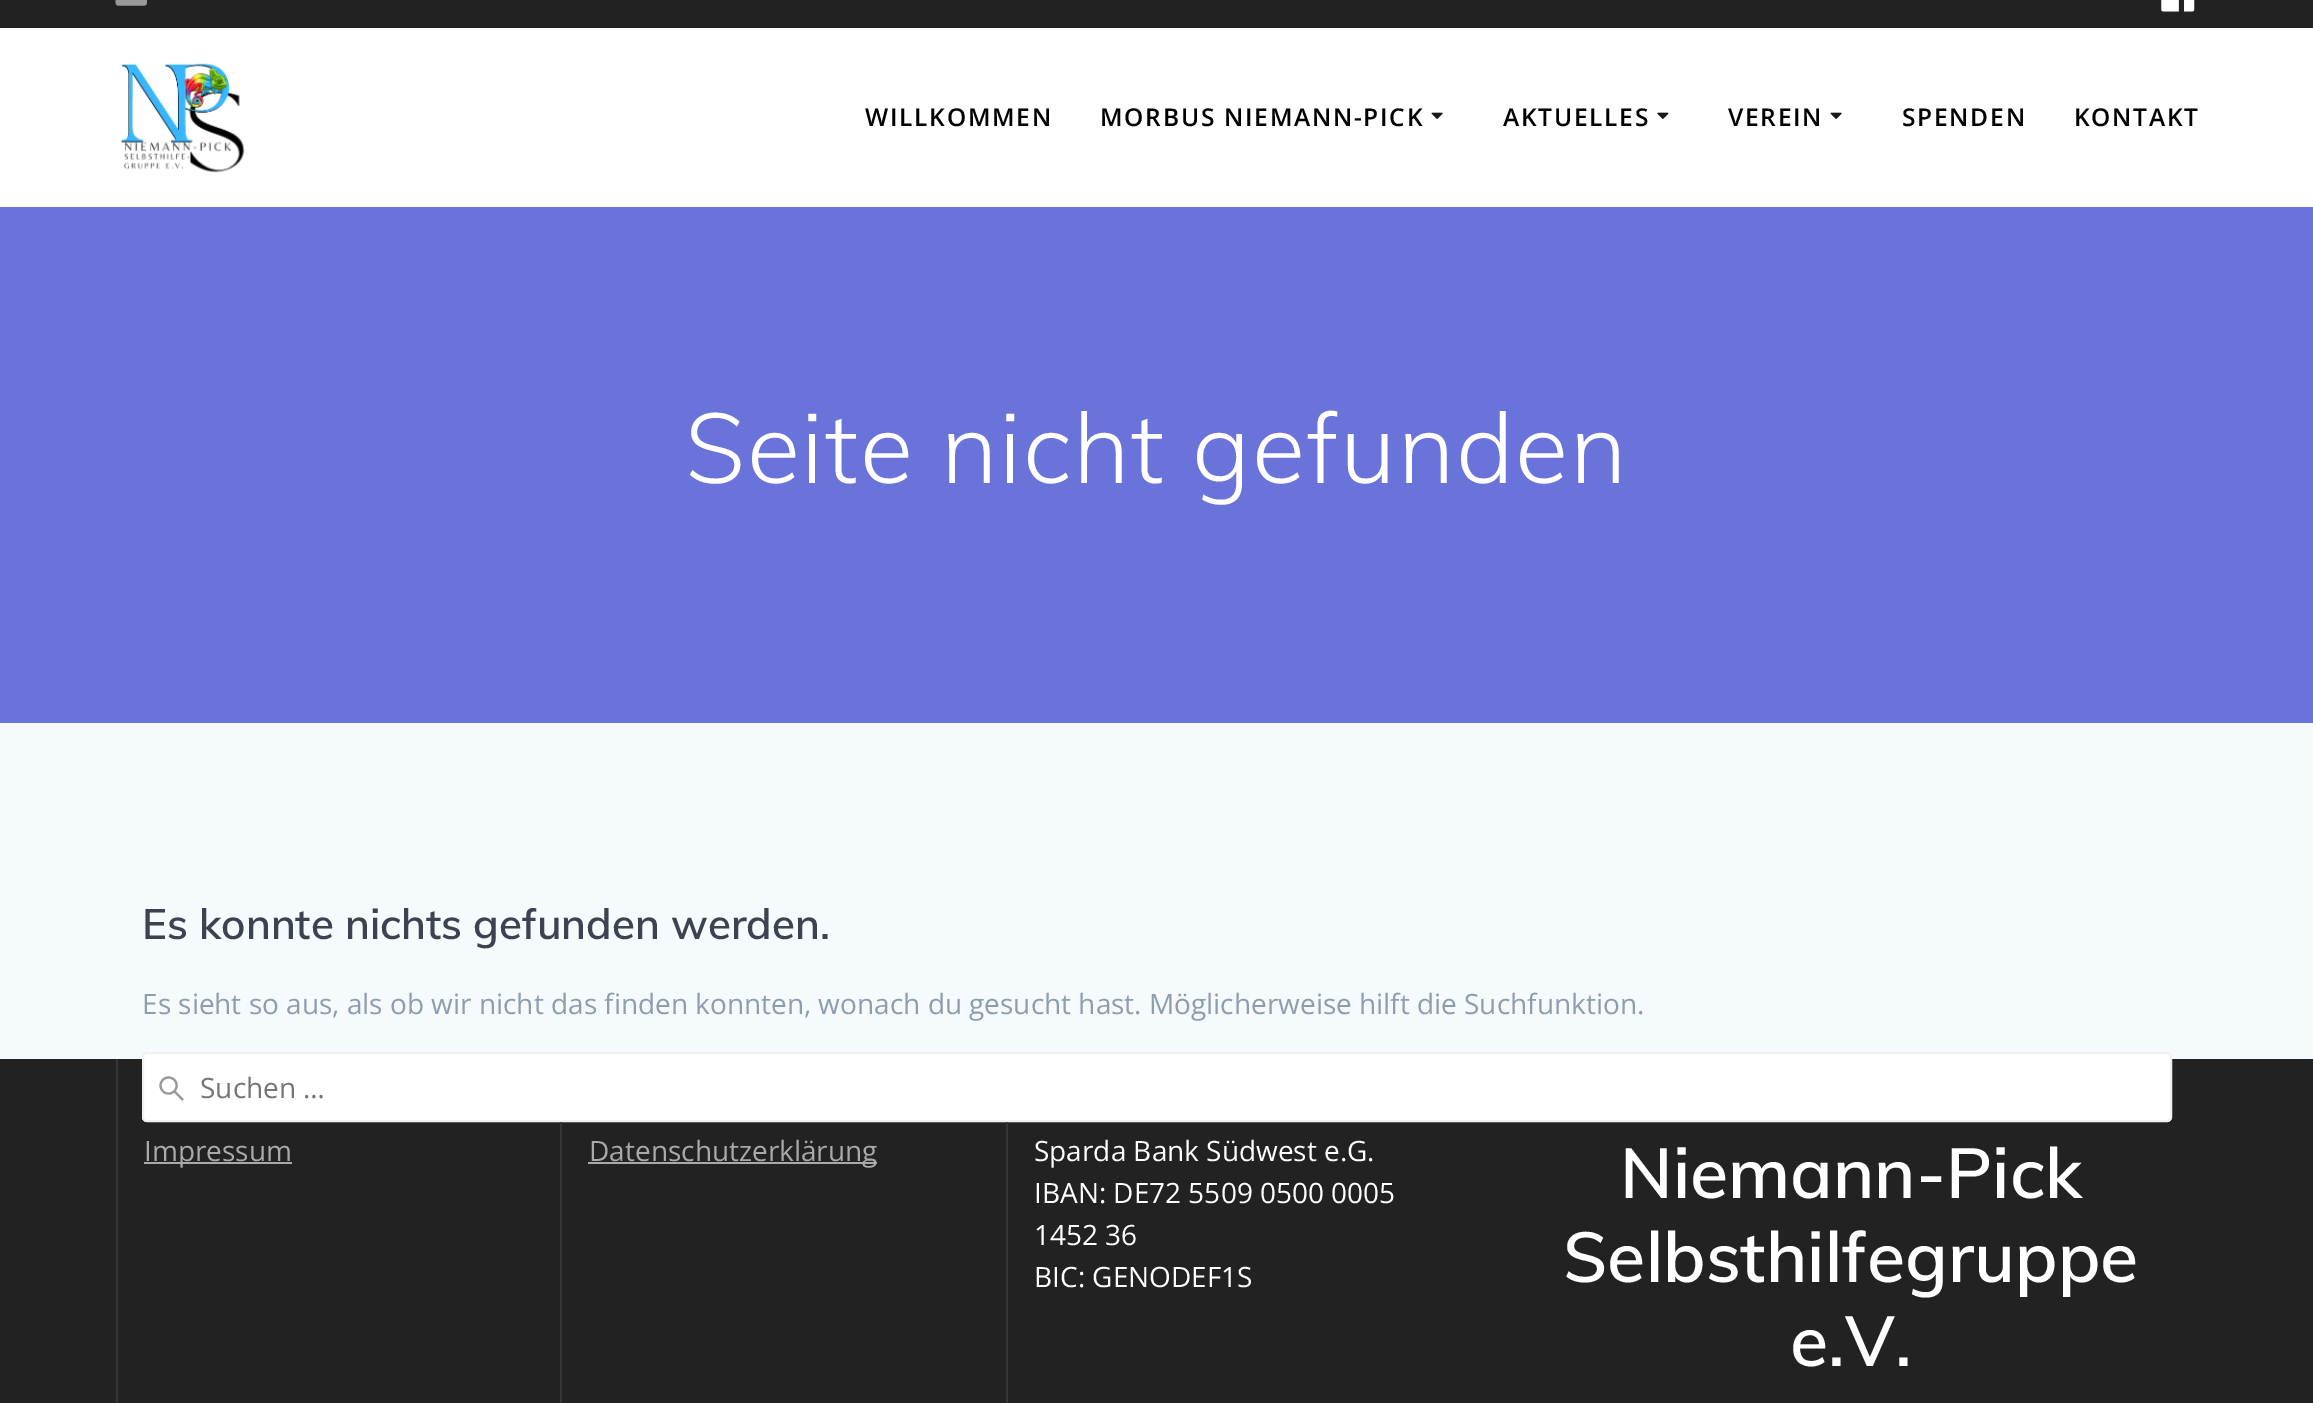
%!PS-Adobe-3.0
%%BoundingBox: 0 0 2313 1403
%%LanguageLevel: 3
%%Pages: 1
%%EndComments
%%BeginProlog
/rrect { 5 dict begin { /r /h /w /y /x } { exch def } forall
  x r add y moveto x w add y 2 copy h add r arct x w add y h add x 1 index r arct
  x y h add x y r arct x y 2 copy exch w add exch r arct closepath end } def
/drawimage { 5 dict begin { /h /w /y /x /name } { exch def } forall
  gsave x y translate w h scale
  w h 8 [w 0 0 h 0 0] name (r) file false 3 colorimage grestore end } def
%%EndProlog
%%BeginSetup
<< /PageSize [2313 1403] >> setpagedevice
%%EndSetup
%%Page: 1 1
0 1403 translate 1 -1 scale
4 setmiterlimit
0.416 0.451 0.855 setrgbcolor
0 0 2313 1403 rectfill
0.133 setgray
0 0 2313 28 rectfill
(images/1.raw) 115 0 32 6 drawimage
(images/2.raw) 2161 0 34 12 drawimage
1 setgray
0 28 2313 179 rectfill
(images/3.raw) 121 63 124 110 drawimage
(images/4.raw) 1431 112 12 7 drawimage
(images/5.raw) 1657 112 12 7 drawimage
(images/4.raw) 1830 112 12 7 drawimage
0.961 0.98 0.992 setrgbcolor
0 723 2313 336 rectfill
0.133 setgray
0 1059 2313 344 rectfill
1 setgray
142 1052 2030 70 5 rrect fill
(images/6.raw) 159 1076 25 25 drawimage
0.945 setgray
2 setlinewidth
143 1053 2028 68 4 rrect stroke
0.208 setgray
116 1059 2 344 rectfill
0.667 setgray
144 1162 148 2 rectfill
0.208 setgray
560 1122 2 281 rectfill
0.667 setgray
588 1162 289 2 rectfill
0.208 setgray
1006 1122 2 281 rectfill
/OpenSans-SemiBold [24.5 0 0 -24.5 0 0] selectfont
0 setgray
865 126 moveto 1.75 0 (WILLKOMMEN) ashow
1100 126 moveto 1.75 0 (MORBUS NIEMANN-PICK) ashow
1503 126 moveto 1.75 0 (AKTUELLES) ashow
1728 126 moveto 1.75 0 (VEREIN) ashow
1902 126 moveto 1.75 0 (SPENDEN) ashow
2074 126 moveto 1.75 0 (KONTAKT) ashow
/Muli-Light [98 0 0 -98 0 0] selectfont
1 setgray
685 483 moveto 1.6 0 (Seite nicht gefunden) ashow
/Muli-SemiBold [42 0 0 -42 0 0] selectfont
0.235 0.259 0.31 setrgbcolor
142 939 moveto (Es konnte nichts gefunden werden.) show
/OpenSans-Regular [28 0 0 -28 0 0] selectfont
0.557 0.616 0.682 setrgbcolor
142 1014 moveto (Es sieht so aus, als ob wir nicht das finden konnten, wonach du gesucht hast. Möglicherweise hilft die Suchfunktion.) show
0.459 setgray
200 1098 moveto (Suchen …) show
0.667 setgray
144 1161 moveto (Impressum) show
589 1161 moveto (Datenschutzerklärung) show
1 setgray
1034 1161 moveto (Sparda Bank Südwest e.G.) show
1034 1203 moveto (IBAN: DE72 5509 0500 0005) show
1034 1245 moveto (1452 36) show
1034 1287 moveto (BIC: GENODEF1S) show
/Muli-SemiBold [70 0 0 -70 0 0] selectfont
1620 1198 moveto (Niemann-Pick) show
1563 1282 moveto (Selbsthilfegruppe) show
1790 1366 moveto (e.V.) show
showpage
%%EOF
